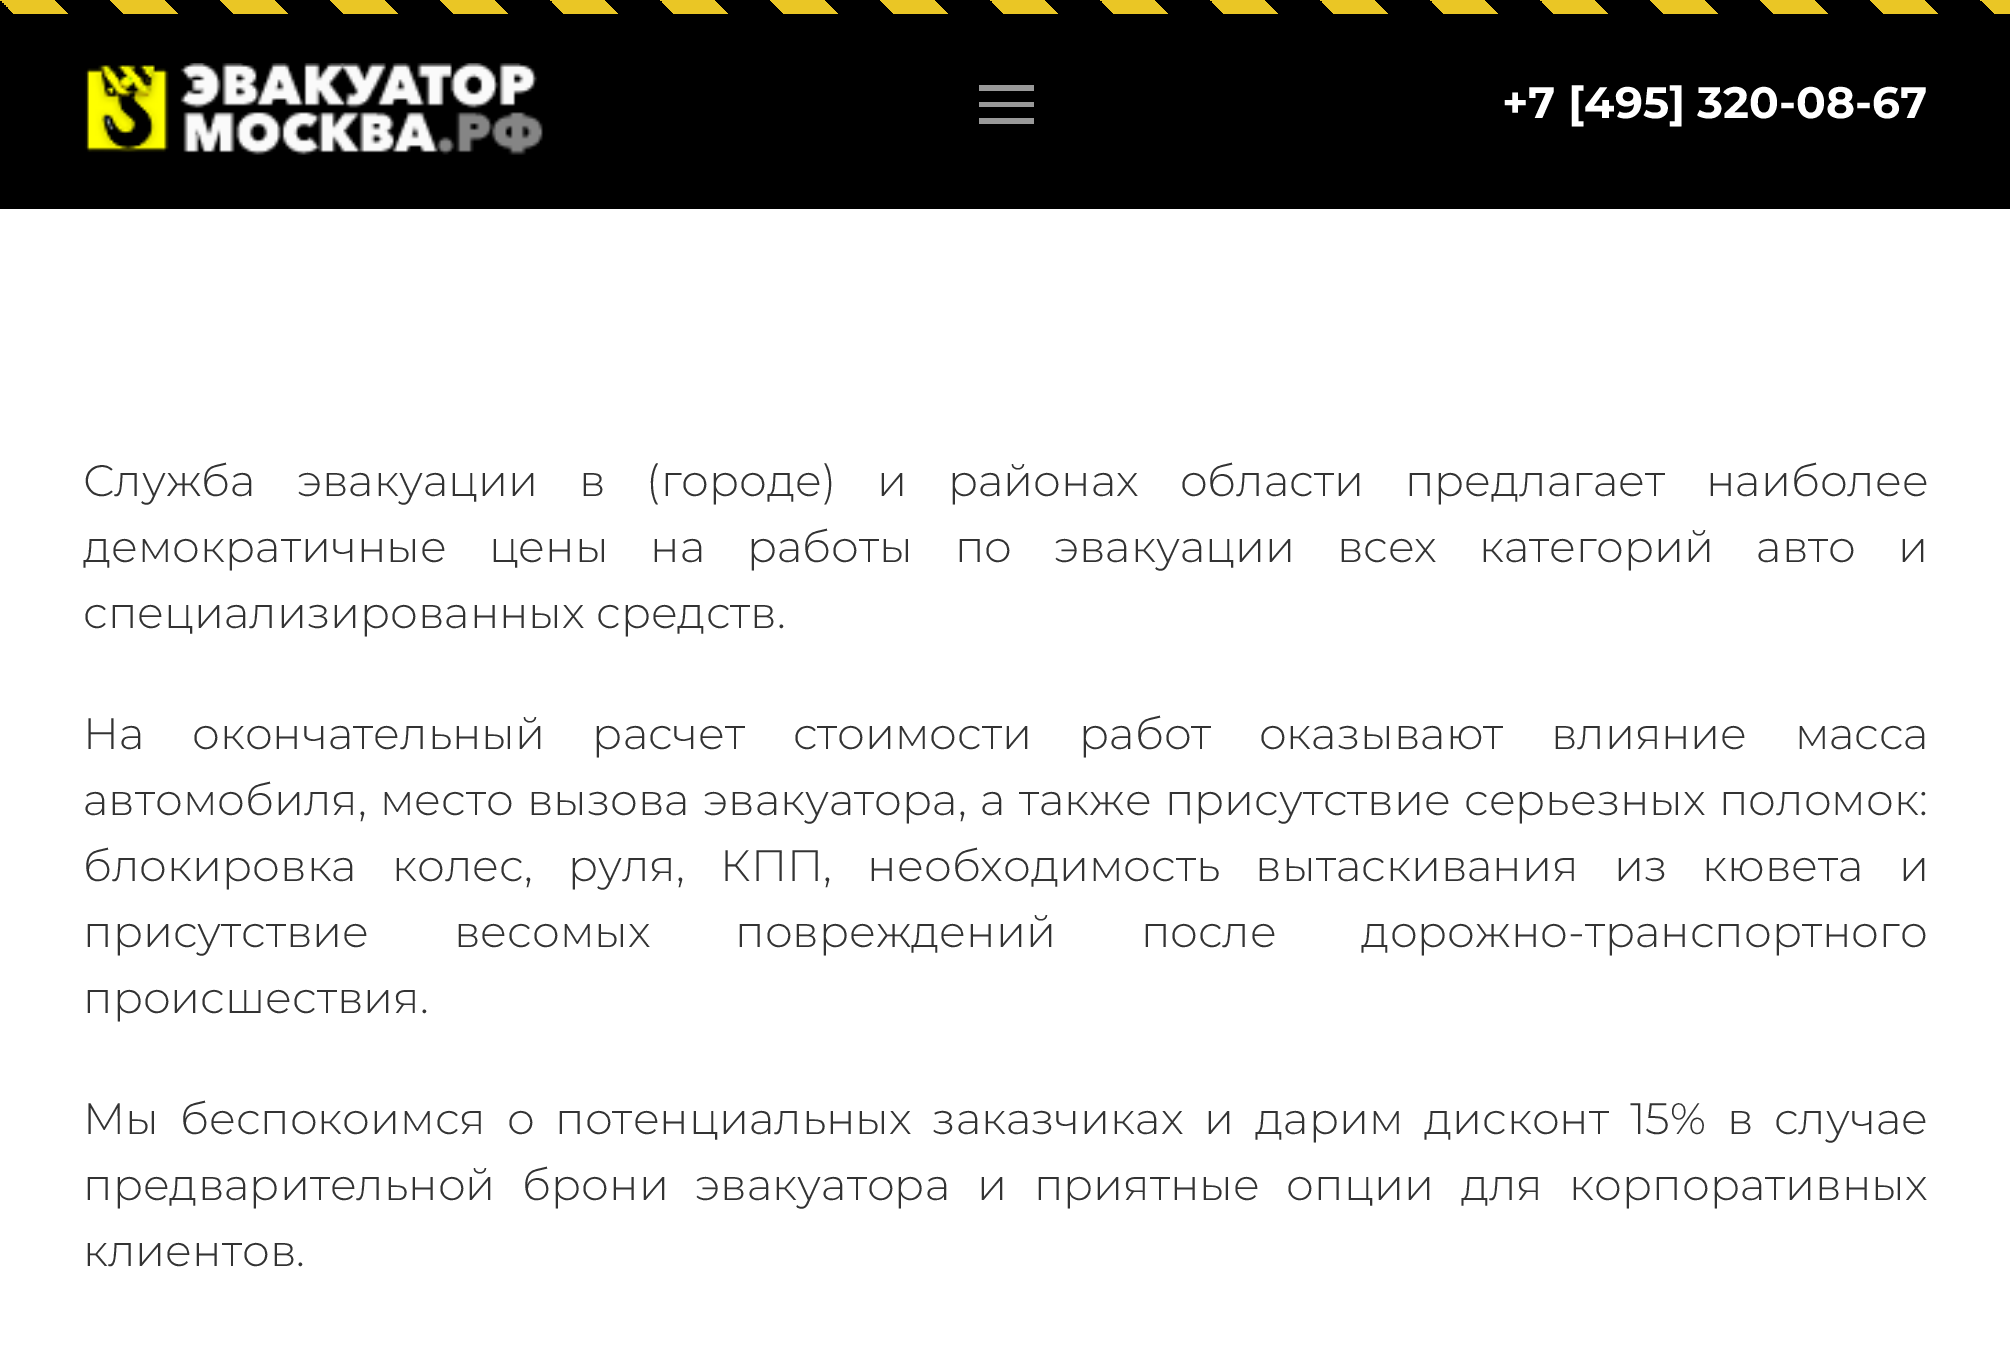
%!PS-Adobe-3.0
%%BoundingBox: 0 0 2010 1354
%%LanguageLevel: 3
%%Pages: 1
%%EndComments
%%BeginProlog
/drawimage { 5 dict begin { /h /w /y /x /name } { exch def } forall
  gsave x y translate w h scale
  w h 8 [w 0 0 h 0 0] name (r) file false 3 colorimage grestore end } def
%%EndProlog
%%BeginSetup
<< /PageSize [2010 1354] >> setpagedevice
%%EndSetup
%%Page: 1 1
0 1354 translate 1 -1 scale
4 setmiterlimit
1 setgray
0 0 2010 1354 rectfill
gsave newpath 0 0 moveto 110 0 lineto 110 14 lineto 0 14 lineto closepath clip newpath
<< /ShadingType 2 /ColorSpace /DeviceRGB /Coords [0 110 110 0] /Extend [true true] /Function << /FunctionType 3 /Domain [0 1] /Functions [<< /FunctionType 2 /Domain [0 1] /C0 [0.918 0.776 0.145] /C1 [0.918 0.776 0.145] /N 1 >> << /FunctionType 2 /Domain [0 1] /C0 [0 0 0] /C1 [0 0 0] /N 1 >> << /FunctionType 2 /Domain [0 1] /C0 [0.918 0.776 0.145] /C1 [0.918 0.776 0.145] /N 1 >> << /FunctionType 2 /Domain [0 1] /C0 [0 0 0] /C1 [0 0 0] /N 1 >>] /Bounds [0.25 0.5 0.75] /Encode [0 1 0 1 0 1 0 1] >> >> shfill grestore
gsave newpath 110 0 moveto 220 0 lineto 220 14 lineto 110 14 lineto closepath clip newpath
<< /ShadingType 2 /ColorSpace /DeviceRGB /Coords [110 110 220 0] /Extend [true true] /Function << /FunctionType 3 /Domain [0 1] /Functions [<< /FunctionType 2 /Domain [0 1] /C0 [0.918 0.776 0.145] /C1 [0.918 0.776 0.145] /N 1 >> << /FunctionType 2 /Domain [0 1] /C0 [0 0 0] /C1 [0 0 0] /N 1 >> << /FunctionType 2 /Domain [0 1] /C0 [0.918 0.776 0.145] /C1 [0.918 0.776 0.145] /N 1 >> << /FunctionType 2 /Domain [0 1] /C0 [0 0 0] /C1 [0 0 0] /N 1 >>] /Bounds [0.25 0.5 0.75] /Encode [0 1 0 1 0 1 0 1] >> >> shfill grestore
gsave newpath 220 0 moveto 330 0 lineto 330 14 lineto 220 14 lineto closepath clip newpath
<< /ShadingType 2 /ColorSpace /DeviceRGB /Coords [220 110 330 0] /Extend [true true] /Function << /FunctionType 3 /Domain [0 1] /Functions [<< /FunctionType 2 /Domain [0 1] /C0 [0.918 0.776 0.145] /C1 [0.918 0.776 0.145] /N 1 >> << /FunctionType 2 /Domain [0 1] /C0 [0 0 0] /C1 [0 0 0] /N 1 >> << /FunctionType 2 /Domain [0 1] /C0 [0.918 0.776 0.145] /C1 [0.918 0.776 0.145] /N 1 >> << /FunctionType 2 /Domain [0 1] /C0 [0 0 0] /C1 [0 0 0] /N 1 >>] /Bounds [0.25 0.5 0.75] /Encode [0 1 0 1 0 1 0 1] >> >> shfill grestore
gsave newpath 330 0 moveto 440 0 lineto 440 14 lineto 330 14 lineto closepath clip newpath
<< /ShadingType 2 /ColorSpace /DeviceRGB /Coords [330 110 440 0] /Extend [true true] /Function << /FunctionType 3 /Domain [0 1] /Functions [<< /FunctionType 2 /Domain [0 1] /C0 [0.918 0.776 0.145] /C1 [0.918 0.776 0.145] /N 1 >> << /FunctionType 2 /Domain [0 1] /C0 [0 0 0] /C1 [0 0 0] /N 1 >> << /FunctionType 2 /Domain [0 1] /C0 [0.918 0.776 0.145] /C1 [0.918 0.776 0.145] /N 1 >> << /FunctionType 2 /Domain [0 1] /C0 [0 0 0] /C1 [0 0 0] /N 1 >>] /Bounds [0.25 0.5 0.75] /Encode [0 1 0 1 0 1 0 1] >> >> shfill grestore
gsave newpath 440 0 moveto 550 0 lineto 550 14 lineto 440 14 lineto closepath clip newpath
<< /ShadingType 2 /ColorSpace /DeviceRGB /Coords [440 110 550 0] /Extend [true true] /Function << /FunctionType 3 /Domain [0 1] /Functions [<< /FunctionType 2 /Domain [0 1] /C0 [0.918 0.776 0.145] /C1 [0.918 0.776 0.145] /N 1 >> << /FunctionType 2 /Domain [0 1] /C0 [0 0 0] /C1 [0 0 0] /N 1 >> << /FunctionType 2 /Domain [0 1] /C0 [0.918 0.776 0.145] /C1 [0.918 0.776 0.145] /N 1 >> << /FunctionType 2 /Domain [0 1] /C0 [0 0 0] /C1 [0 0 0] /N 1 >>] /Bounds [0.25 0.5 0.75] /Encode [0 1 0 1 0 1 0 1] >> >> shfill grestore
gsave newpath 550 0 moveto 660 0 lineto 660 14 lineto 550 14 lineto closepath clip newpath
<< /ShadingType 2 /ColorSpace /DeviceRGB /Coords [550 110 660 0] /Extend [true true] /Function << /FunctionType 3 /Domain [0 1] /Functions [<< /FunctionType 2 /Domain [0 1] /C0 [0.918 0.776 0.145] /C1 [0.918 0.776 0.145] /N 1 >> << /FunctionType 2 /Domain [0 1] /C0 [0 0 0] /C1 [0 0 0] /N 1 >> << /FunctionType 2 /Domain [0 1] /C0 [0.918 0.776 0.145] /C1 [0.918 0.776 0.145] /N 1 >> << /FunctionType 2 /Domain [0 1] /C0 [0 0 0] /C1 [0 0 0] /N 1 >>] /Bounds [0.25 0.5 0.75] /Encode [0 1 0 1 0 1 0 1] >> >> shfill grestore
gsave newpath 660 0 moveto 770 0 lineto 770 14 lineto 660 14 lineto closepath clip newpath
<< /ShadingType 2 /ColorSpace /DeviceRGB /Coords [660 110 770 0] /Extend [true true] /Function << /FunctionType 3 /Domain [0 1] /Functions [<< /FunctionType 2 /Domain [0 1] /C0 [0.918 0.776 0.145] /C1 [0.918 0.776 0.145] /N 1 >> << /FunctionType 2 /Domain [0 1] /C0 [0 0 0] /C1 [0 0 0] /N 1 >> << /FunctionType 2 /Domain [0 1] /C0 [0.918 0.776 0.145] /C1 [0.918 0.776 0.145] /N 1 >> << /FunctionType 2 /Domain [0 1] /C0 [0 0 0] /C1 [0 0 0] /N 1 >>] /Bounds [0.25 0.5 0.75] /Encode [0 1 0 1 0 1 0 1] >> >> shfill grestore
gsave newpath 770 0 moveto 880 0 lineto 880 14 lineto 770 14 lineto closepath clip newpath
<< /ShadingType 2 /ColorSpace /DeviceRGB /Coords [770 110 880 0] /Extend [true true] /Function << /FunctionType 3 /Domain [0 1] /Functions [<< /FunctionType 2 /Domain [0 1] /C0 [0.918 0.776 0.145] /C1 [0.918 0.776 0.145] /N 1 >> << /FunctionType 2 /Domain [0 1] /C0 [0 0 0] /C1 [0 0 0] /N 1 >> << /FunctionType 2 /Domain [0 1] /C0 [0.918 0.776 0.145] /C1 [0.918 0.776 0.145] /N 1 >> << /FunctionType 2 /Domain [0 1] /C0 [0 0 0] /C1 [0 0 0] /N 1 >>] /Bounds [0.25 0.5 0.75] /Encode [0 1 0 1 0 1 0 1] >> >> shfill grestore
gsave newpath 880 0 moveto 990 0 lineto 990 14 lineto 880 14 lineto closepath clip newpath
<< /ShadingType 2 /ColorSpace /DeviceRGB /Coords [880 110 990 0] /Extend [true true] /Function << /FunctionType 3 /Domain [0 1] /Functions [<< /FunctionType 2 /Domain [0 1] /C0 [0.918 0.776 0.145] /C1 [0.918 0.776 0.145] /N 1 >> << /FunctionType 2 /Domain [0 1] /C0 [0 0 0] /C1 [0 0 0] /N 1 >> << /FunctionType 2 /Domain [0 1] /C0 [0.918 0.776 0.145] /C1 [0.918 0.776 0.145] /N 1 >> << /FunctionType 2 /Domain [0 1] /C0 [0 0 0] /C1 [0 0 0] /N 1 >>] /Bounds [0.25 0.5 0.75] /Encode [0 1 0 1 0 1 0 1] >> >> shfill grestore
gsave newpath 990 0 moveto 1100 0 lineto 1100 14 lineto 990 14 lineto closepath clip newpath
<< /ShadingType 2 /ColorSpace /DeviceRGB /Coords [990 110 1100 0] /Extend [true true] /Function << /FunctionType 3 /Domain [0 1] /Functions [<< /FunctionType 2 /Domain [0 1] /C0 [0.918 0.776 0.145] /C1 [0.918 0.776 0.145] /N 1 >> << /FunctionType 2 /Domain [0 1] /C0 [0 0 0] /C1 [0 0 0] /N 1 >> << /FunctionType 2 /Domain [0 1] /C0 [0.918 0.776 0.145] /C1 [0.918 0.776 0.145] /N 1 >> << /FunctionType 2 /Domain [0 1] /C0 [0 0 0] /C1 [0 0 0] /N 1 >>] /Bounds [0.25 0.5 0.75] /Encode [0 1 0 1 0 1 0 1] >> >> shfill grestore
gsave newpath 1100 0 moveto 1210 0 lineto 1210 14 lineto 1100 14 lineto closepath clip newpath
<< /ShadingType 2 /ColorSpace /DeviceRGB /Coords [1100 110 1210 0] /Extend [true true] /Function << /FunctionType 3 /Domain [0 1] /Functions [<< /FunctionType 2 /Domain [0 1] /C0 [0.918 0.776 0.145] /C1 [0.918 0.776 0.145] /N 1 >> << /FunctionType 2 /Domain [0 1] /C0 [0 0 0] /C1 [0 0 0] /N 1 >> << /FunctionType 2 /Domain [0 1] /C0 [0.918 0.776 0.145] /C1 [0.918 0.776 0.145] /N 1 >> << /FunctionType 2 /Domain [0 1] /C0 [0 0 0] /C1 [0 0 0] /N 1 >>] /Bounds [0.25 0.5 0.75] /Encode [0 1 0 1 0 1 0 1] >> >> shfill grestore
gsave newpath 1210 0 moveto 1320 0 lineto 1320 14 lineto 1210 14 lineto closepath clip newpath
<< /ShadingType 2 /ColorSpace /DeviceRGB /Coords [1210 110 1320 0] /Extend [true true] /Function << /FunctionType 3 /Domain [0 1] /Functions [<< /FunctionType 2 /Domain [0 1] /C0 [0.918 0.776 0.145] /C1 [0.918 0.776 0.145] /N 1 >> << /FunctionType 2 /Domain [0 1] /C0 [0 0 0] /C1 [0 0 0] /N 1 >> << /FunctionType 2 /Domain [0 1] /C0 [0.918 0.776 0.145] /C1 [0.918 0.776 0.145] /N 1 >> << /FunctionType 2 /Domain [0 1] /C0 [0 0 0] /C1 [0 0 0] /N 1 >>] /Bounds [0.25 0.5 0.75] /Encode [0 1 0 1 0 1 0 1] >> >> shfill grestore
gsave newpath 1320 0 moveto 1430 0 lineto 1430 14 lineto 1320 14 lineto closepath clip newpath
<< /ShadingType 2 /ColorSpace /DeviceRGB /Coords [1320 110 1430 0] /Extend [true true] /Function << /FunctionType 3 /Domain [0 1] /Functions [<< /FunctionType 2 /Domain [0 1] /C0 [0.918 0.776 0.145] /C1 [0.918 0.776 0.145] /N 1 >> << /FunctionType 2 /Domain [0 1] /C0 [0 0 0] /C1 [0 0 0] /N 1 >> << /FunctionType 2 /Domain [0 1] /C0 [0.918 0.776 0.145] /C1 [0.918 0.776 0.145] /N 1 >> << /FunctionType 2 /Domain [0 1] /C0 [0 0 0] /C1 [0 0 0] /N 1 >>] /Bounds [0.25 0.5 0.75] /Encode [0 1 0 1 0 1 0 1] >> >> shfill grestore
gsave newpath 1430 0 moveto 1540 0 lineto 1540 14 lineto 1430 14 lineto closepath clip newpath
<< /ShadingType 2 /ColorSpace /DeviceRGB /Coords [1430 110 1540 0] /Extend [true true] /Function << /FunctionType 3 /Domain [0 1] /Functions [<< /FunctionType 2 /Domain [0 1] /C0 [0.918 0.776 0.145] /C1 [0.918 0.776 0.145] /N 1 >> << /FunctionType 2 /Domain [0 1] /C0 [0 0 0] /C1 [0 0 0] /N 1 >> << /FunctionType 2 /Domain [0 1] /C0 [0.918 0.776 0.145] /C1 [0.918 0.776 0.145] /N 1 >> << /FunctionType 2 /Domain [0 1] /C0 [0 0 0] /C1 [0 0 0] /N 1 >>] /Bounds [0.25 0.5 0.75] /Encode [0 1 0 1 0 1 0 1] >> >> shfill grestore
gsave newpath 1540 0 moveto 1650 0 lineto 1650 14 lineto 1540 14 lineto closepath clip newpath
<< /ShadingType 2 /ColorSpace /DeviceRGB /Coords [1540 110 1650 0] /Extend [true true] /Function << /FunctionType 3 /Domain [0 1] /Functions [<< /FunctionType 2 /Domain [0 1] /C0 [0.918 0.776 0.145] /C1 [0.918 0.776 0.145] /N 1 >> << /FunctionType 2 /Domain [0 1] /C0 [0 0 0] /C1 [0 0 0] /N 1 >> << /FunctionType 2 /Domain [0 1] /C0 [0.918 0.776 0.145] /C1 [0.918 0.776 0.145] /N 1 >> << /FunctionType 2 /Domain [0 1] /C0 [0 0 0] /C1 [0 0 0] /N 1 >>] /Bounds [0.25 0.5 0.75] /Encode [0 1 0 1 0 1 0 1] >> >> shfill grestore
gsave newpath 1650 0 moveto 1760 0 lineto 1760 14 lineto 1650 14 lineto closepath clip newpath
<< /ShadingType 2 /ColorSpace /DeviceRGB /Coords [1650 110 1760 0] /Extend [true true] /Function << /FunctionType 3 /Domain [0 1] /Functions [<< /FunctionType 2 /Domain [0 1] /C0 [0.918 0.776 0.145] /C1 [0.918 0.776 0.145] /N 1 >> << /FunctionType 2 /Domain [0 1] /C0 [0 0 0] /C1 [0 0 0] /N 1 >> << /FunctionType 2 /Domain [0 1] /C0 [0.918 0.776 0.145] /C1 [0.918 0.776 0.145] /N 1 >> << /FunctionType 2 /Domain [0 1] /C0 [0 0 0] /C1 [0 0 0] /N 1 >>] /Bounds [0.25 0.5 0.75] /Encode [0 1 0 1 0 1 0 1] >> >> shfill grestore
gsave newpath 1760 0 moveto 1870 0 lineto 1870 14 lineto 1760 14 lineto closepath clip newpath
<< /ShadingType 2 /ColorSpace /DeviceRGB /Coords [1760 110 1870 0] /Extend [true true] /Function << /FunctionType 3 /Domain [0 1] /Functions [<< /FunctionType 2 /Domain [0 1] /C0 [0.918 0.776 0.145] /C1 [0.918 0.776 0.145] /N 1 >> << /FunctionType 2 /Domain [0 1] /C0 [0 0 0] /C1 [0 0 0] /N 1 >> << /FunctionType 2 /Domain [0 1] /C0 [0.918 0.776 0.145] /C1 [0.918 0.776 0.145] /N 1 >> << /FunctionType 2 /Domain [0 1] /C0 [0 0 0] /C1 [0 0 0] /N 1 >>] /Bounds [0.25 0.5 0.75] /Encode [0 1 0 1 0 1 0 1] >> >> shfill grestore
gsave newpath 1870 0 moveto 1980 0 lineto 1980 14 lineto 1870 14 lineto closepath clip newpath
<< /ShadingType 2 /ColorSpace /DeviceRGB /Coords [1870 110 1980 0] /Extend [true true] /Function << /FunctionType 3 /Domain [0 1] /Functions [<< /FunctionType 2 /Domain [0 1] /C0 [0.918 0.776 0.145] /C1 [0.918 0.776 0.145] /N 1 >> << /FunctionType 2 /Domain [0 1] /C0 [0 0 0] /C1 [0 0 0] /N 1 >> << /FunctionType 2 /Domain [0 1] /C0 [0.918 0.776 0.145] /C1 [0.918 0.776 0.145] /N 1 >> << /FunctionType 2 /Domain [0 1] /C0 [0 0 0] /C1 [0 0 0] /N 1 >>] /Bounds [0.25 0.5 0.75] /Encode [0 1 0 1 0 1 0 1] >> >> shfill grestore
gsave newpath 1980 0 moveto 2010 0 lineto 2010 14 lineto 1980 14 lineto closepath clip newpath
<< /ShadingType 2 /ColorSpace /DeviceRGB /Coords [1980 110 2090 0] /Extend [true true] /Function << /FunctionType 3 /Domain [0 1] /Functions [<< /FunctionType 2 /Domain [0 1] /C0 [0.918 0.776 0.145] /C1 [0.918 0.776 0.145] /N 1 >> << /FunctionType 2 /Domain [0 1] /C0 [0 0 0] /C1 [0 0 0] /N 1 >> << /FunctionType 2 /Domain [0 1] /C0 [0.918 0.776 0.145] /C1 [0.918 0.776 0.145] /N 1 >> << /FunctionType 2 /Domain [0 1] /C0 [0 0 0] /C1 [0 0 0] /N 1 >>] /Bounds [0.25 0.5 0.75] /Encode [0 1 0 1 0 1 0 1] >> >> shfill grestore
0 setgray
0 14 2010 195 rectfill
(images/1.raw) 85 63 458 92 drawimage
0.6 setgray
979 102 55 5 rectfill
979 85 55 6 rectfill
979 118 55 6 rectfill
/Montserrat-Bold [44 0 0 -44 0 0] selectfont
1 setgray
1502 118 moveto (+7 [495] 320-08-67) show
/Montserrat-Light [44 0 0 -44 0 0] selectfont
0.2 setgray
83 496 moveto 29.75 0 32 (Служба эвакуации в \(городе\) и районах области предлагает наиболее) widthshow
83 562 moveto 30.5 0 32 (демократичные цены на работы по эвакуации всех категорий авто и) widthshow
83 628 moveto (специализированных средств.) show
83 749 moveto 36 0 32 (На окончательный расчет стоимости работ оказывают влияние масса) widthshow
83 815 moveto 2 0 32 (автомобиля, место вызова эвакуатора, а также присутствие серьезных поломок:) widthshow
83 881 moveto 24 0 32 (блокировка колес, руля, КПП, необходимость вытаскивания из кювета и) widthshow
83 947 moveto 73.5 0 32 (присутствие весомых повреждений после дорожно-транспортного) widthshow
83 1013 moveto (происшествия.) show
83 1134 moveto 9.5 0 32 (Мы беспокоимся о потенциальных заказчиках и дарим дисконт 15% в случае) widthshow
83 1200 moveto 15.5 0 32 (предварительной брони эвакуатора и приятные опции для корпоративных) widthshow
83 1266 moveto (клиентов.) show
showpage
%%EOF
